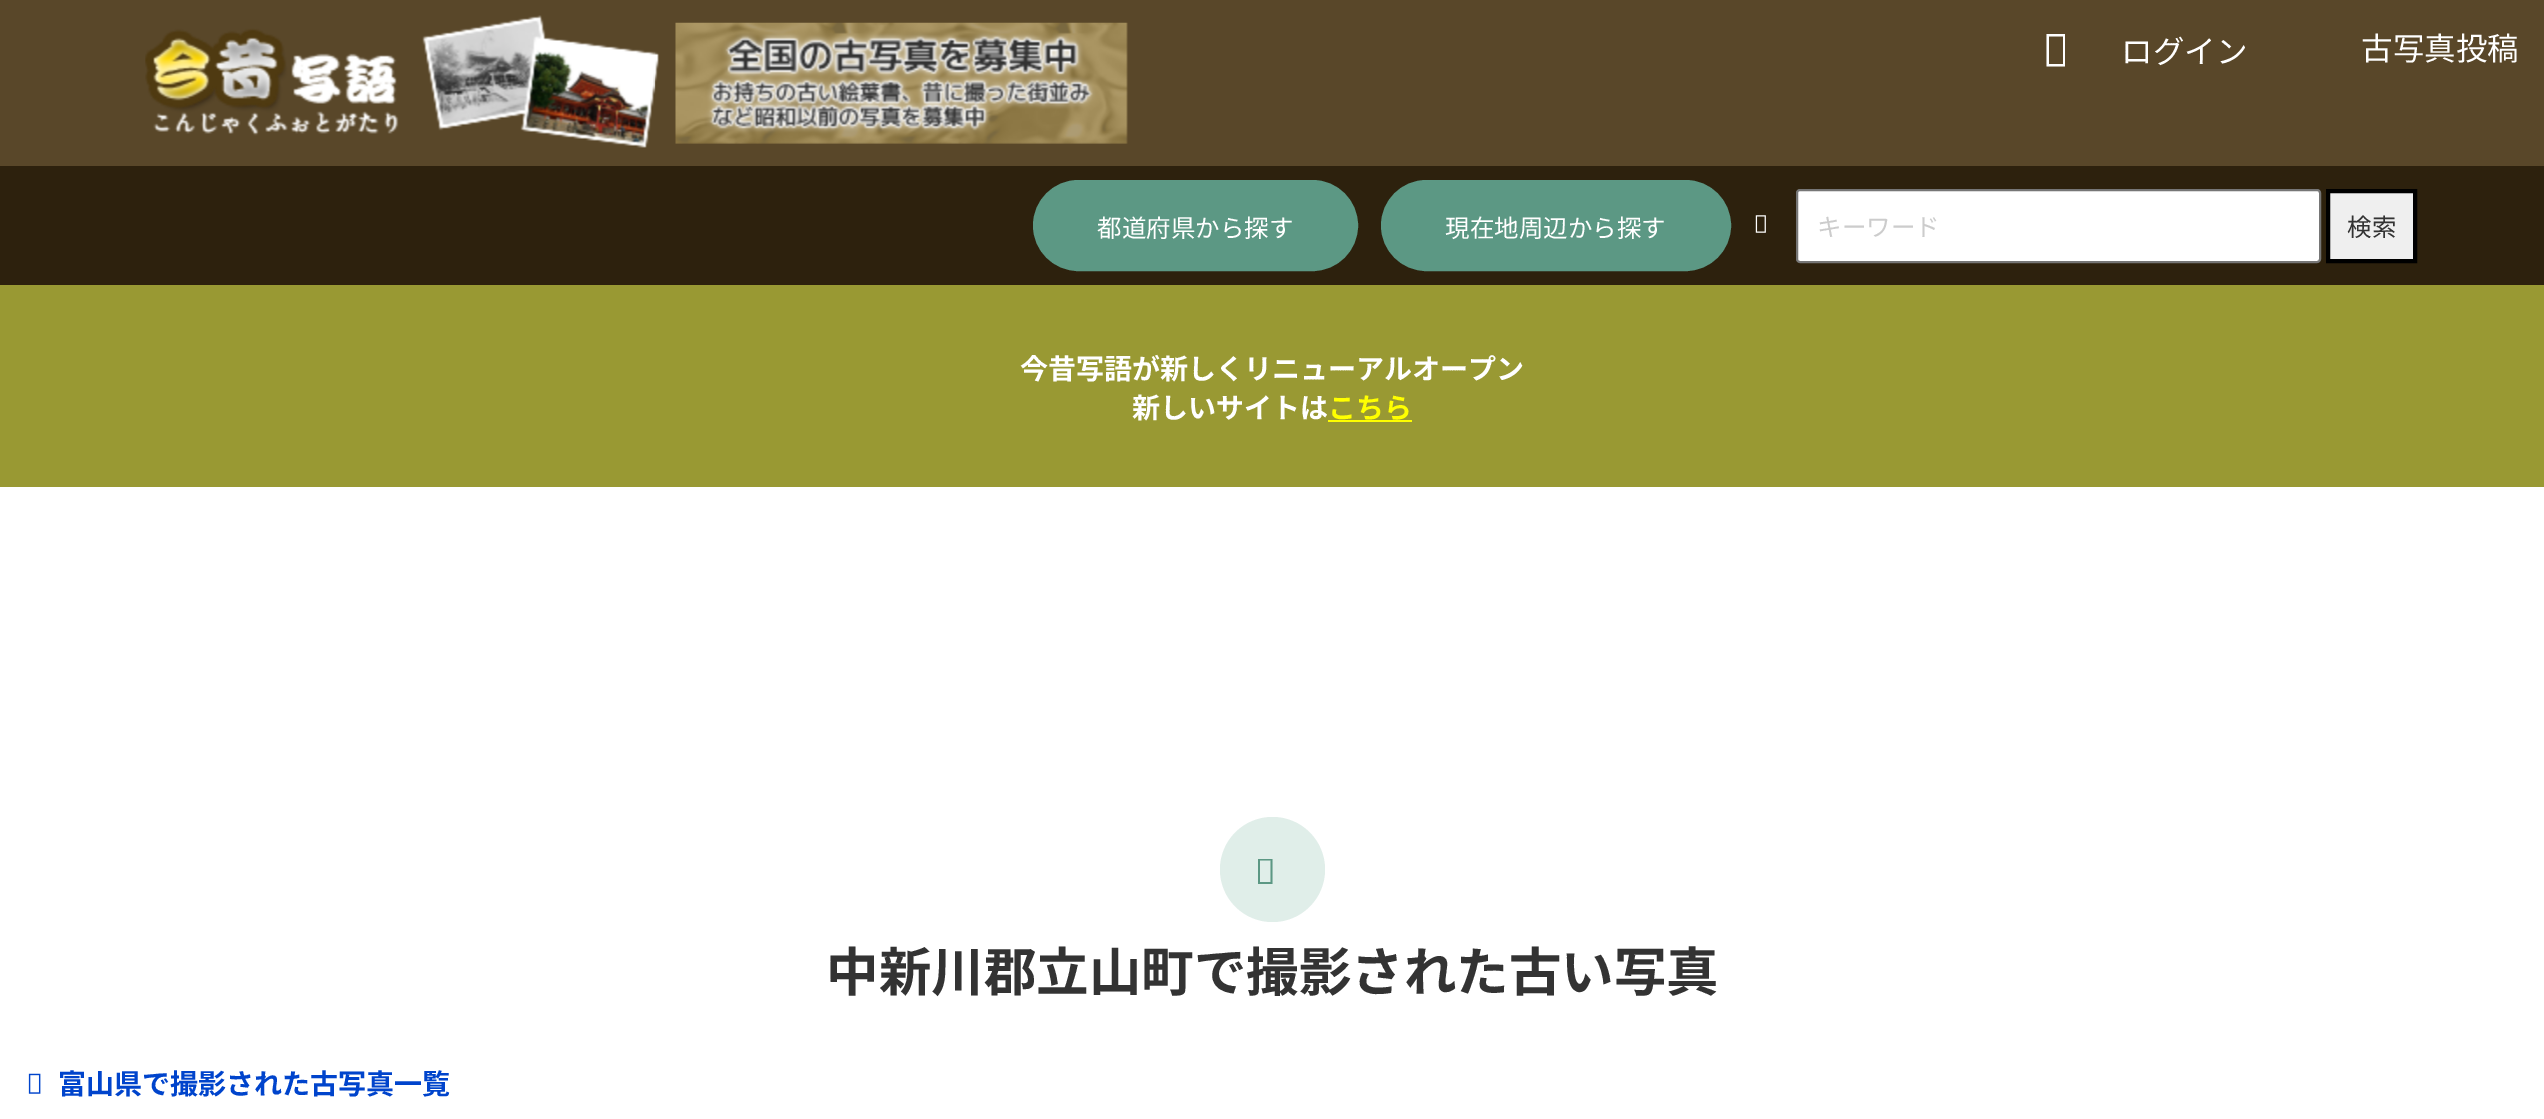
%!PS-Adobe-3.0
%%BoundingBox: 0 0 2544 1119
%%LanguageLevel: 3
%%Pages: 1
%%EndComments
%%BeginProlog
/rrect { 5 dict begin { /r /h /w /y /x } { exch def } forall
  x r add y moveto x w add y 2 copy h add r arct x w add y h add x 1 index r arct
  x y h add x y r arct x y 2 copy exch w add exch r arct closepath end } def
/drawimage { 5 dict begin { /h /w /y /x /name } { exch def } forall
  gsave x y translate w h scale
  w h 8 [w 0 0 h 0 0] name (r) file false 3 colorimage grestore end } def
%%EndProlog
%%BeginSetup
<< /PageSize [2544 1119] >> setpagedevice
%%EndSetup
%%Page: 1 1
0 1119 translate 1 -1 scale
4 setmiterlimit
0.6 0.6 0.2 setrgbcolor
0 0 2544 1119 rectfill
0.349 0.278 0.161 setrgbcolor
0 0 2544 166 rectfill
(images/1.raw) 145 15 514 133 drawimage
(images/2.raw) 675 22 453 122 drawimage
1 setgray
newpath 2046.5 66.5 moveto 2046.5 34 lineto 2065 34 lineto 2065 66.5 lineto closepath 2049 64 moveto 2063 64 lineto 2063 36.5 lineto 2049 36.5 lineto closepath fill
0.176 0.129 0.051 setrgbcolor
0 166 2544 119 rectfill
0.361 0.596 0.518 setrgbcolor
1035 182 321 87 43.5 rrect gsave fill grestore
4 setlinewidth
stroke
1383 182 346 87 43.5 rrect gsave fill grestore
stroke
(images/3.raw) 1755 215 11 18 drawimage
1 setgray
1797 190 523 72 3 rrect gsave fill grestore
0.463 setgray
2 setlinewidth
stroke
0.937 setgray
newpath 2328 191 moveto 2415 191 lineto 2415 261 lineto 2328 261 lineto closepath gsave fill grestore
0 setgray
4 setlinewidth
stroke
1 1 0 setrgbcolor
1328 420 84 2 rectfill
1 setgray
0 487 2544 632 rectfill
0.878 0.933 0.914 setrgbcolor
newpath 1272.5 869.5 52.5 0 360 arc closepath fill
0.361 0.596 0.518 setrgbcolor
newpath 1258 884 moveto 1258 859 lineto 1272.5 859 lineto 1272.5 884 lineto closepath 1260 882 moveto 1270.5 882 lineto 1270.5 860.5 lineto 1260 860.5 lineto closepath fill
(images/4.raw) 28 1073 13 21 drawimage
/NotoSansJP-Regular [31.5 0 0 -31.5 0 0] selectfont
1 setgray
2121 63 moveto (ログイン) show
2361 60 moveto (古写真投稿) show
/NotoSansJP-Regular [24.5 0 0 -24.5 0 0] selectfont
1097 237 moveto (都道府県から探す) show
1445 237 moveto (現在地周辺から探す) show
0.8 setgray
1817 236 moveto (キーワード) show
0.2 setgray
2347 236 moveto (検索) show
/NotoSansJP-Bold [28 0 0 -28 0 0] selectfont
1 setgray
1020 379 moveto (今昔写語が新しくリニューアルオープン) show
1132 418 moveto (新しいサイトは) show
1 1 0 setrgbcolor
1328 418 moveto (こちら) show
/NotoSansJP-Bold [52.5 0 0 -52.5 0 0] selectfont
0.2 setgray
826 991 moveto (中新川郡立山町で撮影された古い写真) show
/NotoSansJP-Bold [28 0 0 -28 0 0] selectfont
0 0.267 0.8 setrgbcolor
58 1094 moveto (富山県で撮影された古写真一覧) show
showpage
%%EOF
